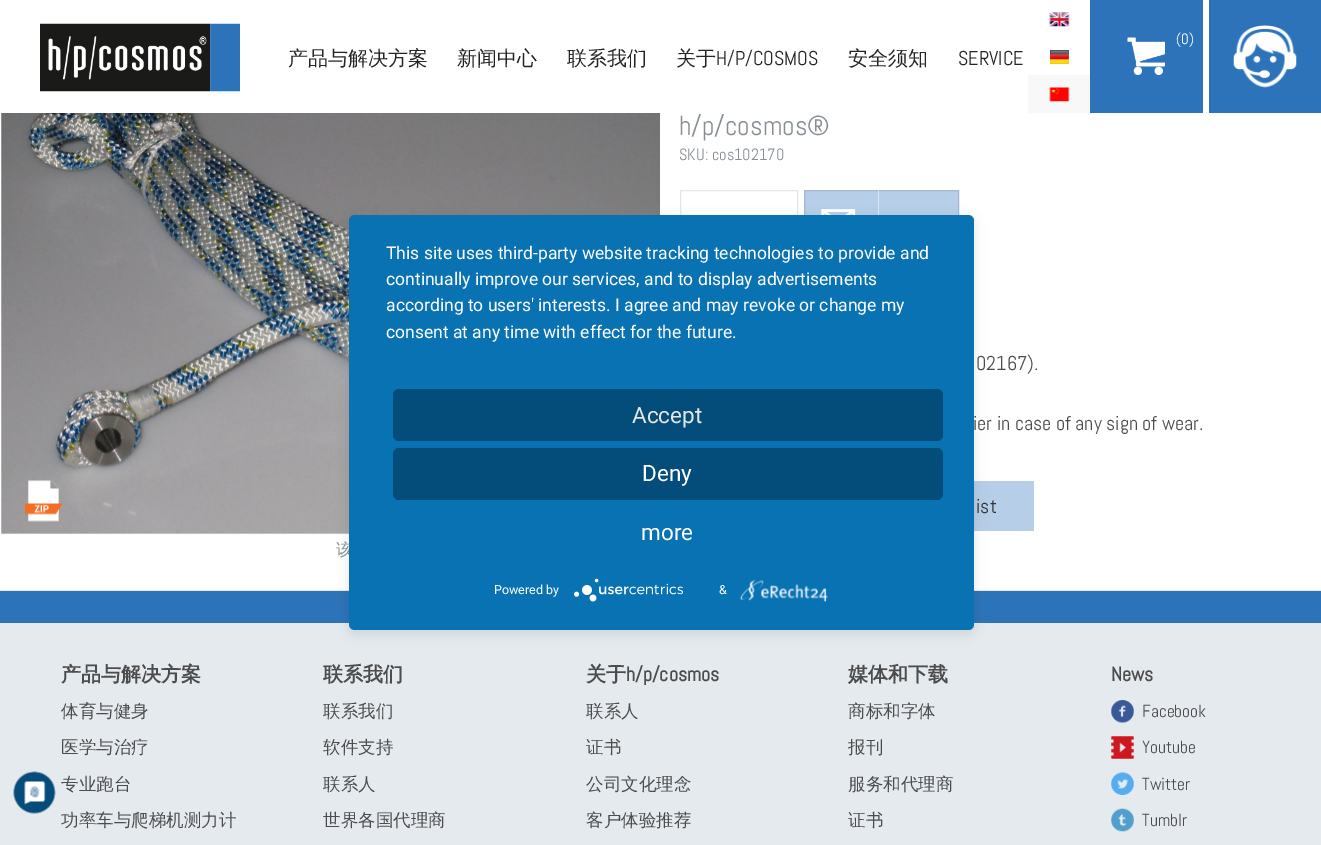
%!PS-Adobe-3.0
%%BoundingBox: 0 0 1321 845
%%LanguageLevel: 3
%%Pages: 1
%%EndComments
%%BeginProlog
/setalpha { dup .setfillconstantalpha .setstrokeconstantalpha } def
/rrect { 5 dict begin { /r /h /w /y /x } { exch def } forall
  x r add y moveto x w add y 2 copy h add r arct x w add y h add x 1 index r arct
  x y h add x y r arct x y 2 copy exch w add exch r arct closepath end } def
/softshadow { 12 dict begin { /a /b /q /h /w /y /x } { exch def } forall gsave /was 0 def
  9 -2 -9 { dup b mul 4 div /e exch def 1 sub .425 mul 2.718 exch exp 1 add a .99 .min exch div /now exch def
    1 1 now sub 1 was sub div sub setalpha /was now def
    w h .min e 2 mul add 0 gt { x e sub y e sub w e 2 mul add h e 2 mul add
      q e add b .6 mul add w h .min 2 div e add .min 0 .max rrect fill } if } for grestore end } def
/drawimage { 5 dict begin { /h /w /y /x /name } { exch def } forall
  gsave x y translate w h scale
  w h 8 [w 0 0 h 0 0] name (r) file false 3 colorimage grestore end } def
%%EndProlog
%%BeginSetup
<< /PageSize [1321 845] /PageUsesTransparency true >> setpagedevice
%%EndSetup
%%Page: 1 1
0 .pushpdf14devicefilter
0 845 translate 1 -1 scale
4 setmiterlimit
1 setgray
0 0 1321 845 rectfill
(images/1.raw) 40 23 200 69 drawimage
0.176 0.451 0.725 setrgbcolor
1090 0 113 113 rectfill
(images/2.raw) 1127 37 38 38 drawimage
1209 0 112 113 rectfill
(images/3.raw) 1233 25 64 63 drawimage
(images/4.raw) 1049 12 21 15 drawimage
(images/5.raw) 1050 50 19 14 drawimage
0.973 setgray
1028 75 62 38 rectfill
(images/6.raw) 1049 87 21 15 drawimage
0.902 setgray
0 590 1321 1 rectfill
680.5 190.5 117 68 rectstroke
0.714 0.808 0.906 setrgbcolor
805 191 153 24 rectfill
0.643 0.725 0.816 setrgbcolor
804.5 190.5 154 68 rectstroke
(images/7.raw) 821 209 35 6 drawimage
0.5 setalpha
1 setgray
878 190 1 25 rectfill
1 setalpha
0.714 0.808 0.906 setrgbcolor
974 481 60 50 rectfill
(images/8.raw) 0 113 661 422 drawimage
(images/9.raw) 25 480 38 42 drawimage
0.176 0.451 0.725 setrgbcolor
0 591 1321 32 rectfill
0.898 0.918 0.937 setrgbcolor
0 623 1321 222 rectfill
0 setgray
349 219 625 415 6 6 0.1 softshadow
gsave
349 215 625 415 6 rrect clip newpath
349 223 625 415 0 22.5 0.3 softshadow
grestore
(images/12.raw) 13 771 43 43 drawimage
(images/13.raw) 1111 700 23 23 drawimage
(images/14.raw) 1111 736 23 23 drawimage
(images/15.raw) 1111 772 23 23 drawimage
(images/16.raw) 1111 808 23 24 drawimage
/Abel-Regular [15 0 0 -15 0 0] selectfont
1 setgray
1176 44 moveto (\(0\)) show
/WenQuanYiZenHei-Medium [20 0 0 -20 0 0] selectfont
0.141 setgray
288 65 moveto (产品与解决方案) show
457 65 moveto (新闻中心) show
567 65 moveto (联系我们) show
676 65 moveto (关于) show
/Abel-Regular [20 0 0 -20 0 0] selectfont
716 65 moveto (H/P/COSMOS) show
/WenQuanYiZenHei-Medium [20 0 0 -20 0 0] selectfont
848 65 moveto (安全须知) show
/Abel-Regular [20 0 0 -20 0 0] selectfont
958 65 moveto (SERVICE) show
/Abel-Regular [27.5 0 0 -27.5 0 0] selectfont
0.525 0.553 0.576 setrgbcolor
679 135 moveto (h/p/cosmos®) show
/Abel-Regular [16.25 0 0 -16.25 0 0] selectfont
679 160 moveto (SKU: cos102170) show
/Abel-Regular [20 0 0 -20 0 0] selectfont
0.298 setgray
976 370 moveto (02167\).) show
973 430 moveto (ier in case of any sign of wear.) show
0.192 setgray
976 513 moveto (ist) show
/WenQuanYiZenHei-Medium [16.25 0 0 -16.25 0 0] selectfont
0.525 0.553 0.576 setrgbcolor
336 555 moveto (该) show
0.035 0.447 0.702 setrgbcolor
349 215 625 415 6 rrect fill
/Roboto-Regular [17.5 0 0 -17.5 0 0] selectfont
1 setgray
386 259 moveto (This site uses third-party website tracking technologies to provide and) show
386 285 moveto (continually improve our services, and to display advertisements) show
386 311 moveto (according to users' interests. I agree and may revoke or change my) show
386 338 moveto (consent at any time with effect for the future.) show
0.016 0.302 0.478 setrgbcolor
393 389 550 52 6 rrect fill
/Roboto-Regular [22.5 0 0 -22.5 0 0] selectfont
0.902 setgray
632 423 moveto (Accept) show
0.016 0.302 0.478 setrgbcolor
393 448 550 52 6 rrect fill
1 setgray
642 481 moveto (Deny) show
641 540 moveto (more) show
/Roboto-Regular [12.5 0 0 -12.5 0 0] selectfont
494 594 moveto (Powered by) show
(images/10.raw) 574 578 109 24 drawimage
719 594 moveto (&) show
(images/11.raw) 740 579 88 23 drawimage
/WenQuanYiZenHei-Bold [20 0 0 -20 0 0] selectfont
0.298 setgray
61 681 moveto (产品与解决方案) show
/WenQuanYiZenHei-Medium [17.5 0 0 -17.5 0 0] selectfont
61 717 moveto (体育与健身) show
61 753 moveto (医学与治疗) show
61 790 moveto (专业跑台) show
61 826 moveto (功率车与爬梯机测力计) show
/WenQuanYiZenHei-Bold [20 0 0 -20 0 0] selectfont
323 681 moveto (联系我们) show
/WenQuanYiZenHei-Medium [17.5 0 0 -17.5 0 0] selectfont
323 717 moveto (联系我们) show
323 753 moveto (软件支持) show
323 790 moveto (联系人) show
323 826 moveto (世界各国代理商) show
/WenQuanYiZenHei-Bold [20 0 0 -20 0 0] selectfont
586 681 moveto (关于) show
/Abel-Bold [20 0 0 -20 0 0] selectfont
626 681 moveto (h/p/cosmos) show
/WenQuanYiZenHei-Medium [17.5 0 0 -17.5 0 0] selectfont
586 717 moveto (联系人) show
586 753 moveto (证书) show
586 790 moveto (公司文化理念) show
586 826 moveto (客户体验推荐) show
/WenQuanYiZenHei-Bold [20 0 0 -20 0 0] selectfont
848 681 moveto (媒体和下载) show
/WenQuanYiZenHei-Medium [17.5 0 0 -17.5 0 0] selectfont
848 717 moveto (商标和字体) show
848 753 moveto (报刊) show
848 790 moveto (服务和代理商) show
848 826 moveto (证书) show
/Abel-Bold [20 0 0 -20 0 0] selectfont
1111 681 moveto (News) show
/Abel-Regular [17.5 0 0 -17.5 0 0] selectfont
1142 717 moveto (Facebook) show
1142 753 moveto (Youtube) show
1142 790 moveto (Twitter) show
1142 826 moveto (Tumblr) show
.poppdf14devicefilter showpage
%%EOF
